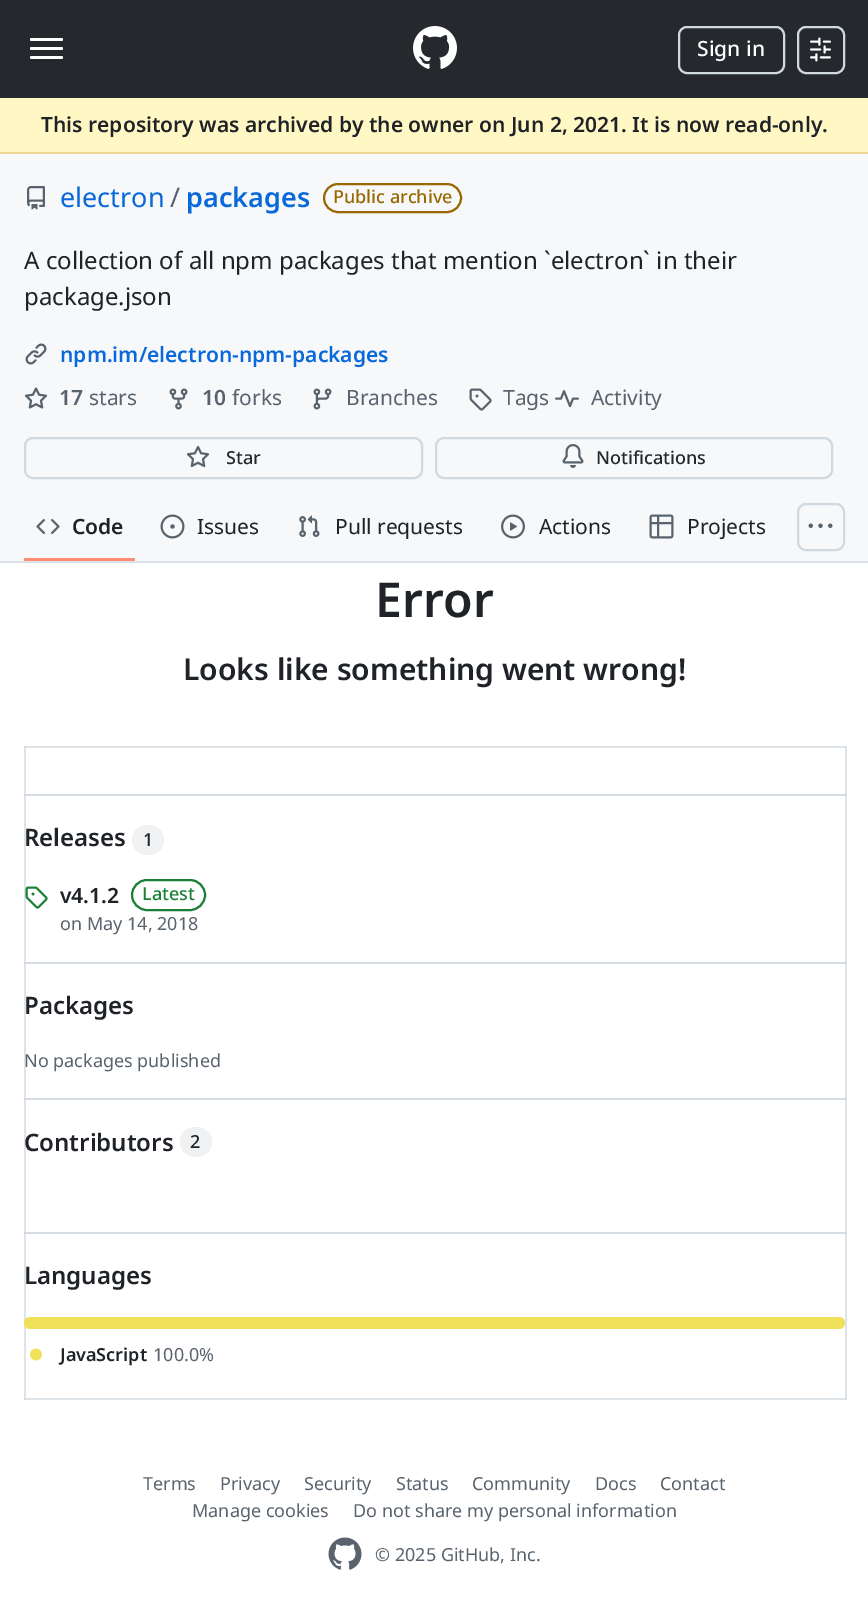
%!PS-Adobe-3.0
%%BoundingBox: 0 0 868 1620
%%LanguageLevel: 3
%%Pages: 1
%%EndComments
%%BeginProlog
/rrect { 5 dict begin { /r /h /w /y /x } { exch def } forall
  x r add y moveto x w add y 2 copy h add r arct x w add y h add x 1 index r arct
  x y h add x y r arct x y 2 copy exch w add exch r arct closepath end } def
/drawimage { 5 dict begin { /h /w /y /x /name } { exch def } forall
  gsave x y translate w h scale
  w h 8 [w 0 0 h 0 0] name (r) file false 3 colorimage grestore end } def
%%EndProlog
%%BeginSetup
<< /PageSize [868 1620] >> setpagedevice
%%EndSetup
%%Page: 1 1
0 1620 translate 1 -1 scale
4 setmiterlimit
1 setgray
0 0 868 1620 rectfill
0.875 0.894 0.914 setrgbcolor
24 746 2 654 rectfill
845 746 2 487 rectfill
0.835 0.863 0.89 setrgbcolor
845 794 2 1 rectfill
845 962 2 1 rectfill
24 1098 823 2 rectfill
0.875 0.894 0.914 setrgbcolor
24 1398 822 2 rectfill
0.835 0.863 0.89 setrgbcolor
24 1398 2 2 rectfill
0.875 0.894 0.914 setrgbcolor
845 1232 2 168 rectfill
0.835 0.863 0.89 setrgbcolor
845 1232 2 1 rectfill
845 1398 1 2 rectfill
0.145 0.161 0.18 setrgbcolor
0 0 868 98 rectfill
1 setgray
30 38 33 3 1.5 rrect fill
30 47 33 3 1.5 rrect fill
30 56 33 3 1.5 rrect fill
(images/1.raw) 413 26 44 43 drawimage
0.82 0.851 0.878 setrgbcolor
2 setlinewidth
679 27 105 46 8 rrect stroke
798 27 46 46 8 rrect stroke
(images/2.raw) 810 37 21 25 drawimage
1 0.973 0.773 setrgbcolor
0 98 868 54 rectfill
0.933 0.847 0.533 setrgbcolor
0 152 868 1 rectfill
0.965 0.973 0.98 setrgbcolor
0 154 868 407 rectfill
0.91 0.847 0.659 setrgbcolor
0 153 868 1 rectfill
(images/3.raw) 27 186 18 24 drawimage
0.604 0.404 0 setrgbcolor
324 184 137 28 14 rrect stroke
(images/4.raw) 25 343 22 22 drawimage
(images/5.raw) 24 387 24 22 drawimage
(images/6.raw) 169 388 19 22 drawimage
(images/7.raw) 313 388 19 22 drawimage
(images/8.raw) 469 388 23 23 drawimage
(images/9.raw) 555 390 24 18 drawimage
0.82 0.851 0.878 setrgbcolor
25 438 397 40 8 rrect stroke
(images/10.raw) 186 445 24 23 drawimage
436 438 396 40 8 rrect stroke
(images/11.raw) 562 444 22 24 drawimage
0.863 0.886 0.91 setrgbcolor
0 561 868 2 rectfill
(images/12.raw) 36 519 24 15 drawimage
0.992 0.549 0.451 setrgbcolor
24 558 111 3 1.5 rrect fill
(images/13.raw) 160 514 25 25 drawimage
(images/14.raw) 299 515 21 22 drawimage
(images/15.raw) 501 514 24 25 drawimage
(images/16.raw) 649 514 25 25 drawimage
0.82 0.851 0.878 setrgbcolor
798 504 46 46 8 rrect stroke
(images/17.raw) 808 523 25 5 drawimage
0.875 0.894 0.914 setrgbcolor
24 746 822 2 rectfill
0.835 0.863 0.89 setrgbcolor
24 746 2 2 rectfill
845 746 1 2 rectfill
24 794 822 2 rectfill
0.824 0.855 0.882 setrgbcolor
24 795 2 1 rectfill
0.82 0.851 0.878 setrgbcolor
24 794 2 1 rectfill
0.824 0.855 0.882 setrgbcolor
845 794 1 2 rectfill
0.941 0.945 0.953 setrgbcolor
132 825 32 30 15 rrect fill
(images/18.raw) 25 886 23 23 drawimage
0.102 0.498 0.216 setrgbcolor
132 880 73 30 15 rrect stroke
0.835 0.863 0.89 setrgbcolor
24 962 822 2 rectfill
0.824 0.855 0.882 setrgbcolor
24 963 2 1 rectfill
0.82 0.851 0.878 setrgbcolor
24 962 2 1 rectfill
0.824 0.855 0.882 setrgbcolor
845 962 1 2 rectfill
0.82 0.851 0.878 setrgbcolor
24 1098 2 2 rectfill
845 1098 1 2 rectfill
0.941 0.945 0.953 setrgbcolor
180 1127 32 30 15 rrect fill
0.835 0.863 0.89 setrgbcolor
24 1232 822 2 rectfill
0.824 0.855 0.882 setrgbcolor
24 1233 2 1 rectfill
0.82 0.851 0.878 setrgbcolor
24 1232 2 1 rectfill
0.824 0.855 0.882 setrgbcolor
845 1232 1 2 rectfill
0.945 0.878 0.353 setrgbcolor
24 1317 821 12 6 rrect fill
(images/19.raw) 30 1348 12 13 drawimage
(images/20.raw) 328 1537 34 33 drawimage
/NotoSans-Medium [21 0 0 -21 0 0] selectfont
1 setgray
697 56 moveto (Sign in) show
/NotoSans-SemiBold [21 0 0 -21 0 0] selectfont
0.122 0.137 0.157 setrgbcolor
41 132 moveto (This repository was archived by the owner on Jun 2, 2021. It is now read-only.) show
/NotoSans-Regular [27 0 0 -27 0 0] selectfont
0.035 0.412 0.855 setrgbcolor
60 207 moveto (electron) show
0.349 0.388 0.431 setrgbcolor
170 207 moveto (/) show
/NotoSans-SemiBold [27 0 0 -27 0 0] selectfont
0.035 0.412 0.855 setrgbcolor
186 207 moveto (packages) show
/NotoSans-Medium [18 0 0 -18 0 0] selectfont
0.604 0.404 0 setrgbcolor
333 203 moveto (Public archive) show
/NotoSans-Regular [24 0 0 -24 0 0] selectfont
0.122 0.137 0.157 setrgbcolor
24 269 moveto (A collection of all npm packages that mention `electron` in their) show
24 305 moveto (package.json) show
/NotoSans-SemiBold [21 0 0 -21 0 0] selectfont
0.035 0.412 0.855 setrgbcolor
60 362 moveto (npm.im/electron-npm-packages) show
0.349 0.388 0.431 setrgbcolor
59 405 moveto (17) show
/NotoSans-Regular [21 0 0 -21 0 0] selectfont
89 405 moveto (stars) show
/NotoSans-SemiBold [21 0 0 -21 0 0] selectfont
202 405 moveto (10) show
/NotoSans-Regular [21 0 0 -21 0 0] selectfont
232 405 moveto (forks) show
346 405 moveto (Branches) show
503 405 moveto (Tags) show
591 405 moveto (Activity) show
/NotoSans-Medium [18 0 0 -18 0 0] selectfont
0.145 0.161 0.18 setrgbcolor
226 464 moveto (Star) show
596 464 moveto (Notifications) show
/NotoSans-SemiBold [21 0 0 -21 0 0] selectfont
0.122 0.137 0.157 setrgbcolor
72 534 moveto (Code) show
/NotoSans-Regular [21 0 0 -21 0 0] selectfont
197 534 moveto (Issues) show
335 534 moveto (Pull requests) show
539 534 moveto (Actions) show
687 534 moveto (Projects) show
/NotoSans-SemiBold [48 0 0 -48 0 0] selectfont
375 617 moveto (Error) show
/NotoSans-SemiBold [30 0 0 -30 0 0] selectfont
183 680 moveto (Looks like something went wrong!) show
/NotoSans-SemiBold [24 0 0 -24 0 0] selectfont
24 846 moveto (Releases) show
/NotoSans-Medium [18 0 0 -18 0 0] selectfont
143 846 moveto (1) show
/NotoSans-SemiBold [21 0 0 -21 0 0] selectfont
60 903 moveto (v4.1.2) show
/NotoSans-Medium [18 0 0 -18 0 0] selectfont
0.102 0.498 0.216 setrgbcolor
142 900 moveto (Latest) show
/NotoSans-Regular [18 0 0 -18 0 0] selectfont
0.349 0.388 0.431 setrgbcolor
60 930 moveto (on May 14, 2018) show
/NotoSans-SemiBold [24 0 0 -24 0 0] selectfont
0.122 0.137 0.157 setrgbcolor
24 1014 moveto (Packages) show
/NotoSans-Regular [18 0 0 -18 0 0] selectfont
0.349 0.388 0.431 setrgbcolor
24 1067 moveto (No packages published) show
/NotoSans-SemiBold [24 0 0 -24 0 0] selectfont
0.122 0.137 0.157 setrgbcolor
24 1151 moveto (Contributors) show
/NotoSans-Medium [18 0 0 -18 0 0] selectfont
190 1148 moveto (2) show
/NotoSans-SemiBold [24 0 0 -24 0 0] selectfont
24 1284 moveto (Languages) show
/NotoSans-SemiBold [18 0 0 -18 0 0] selectfont
60 1361 moveto (JavaScript) show
/NotoSans-Regular [18 0 0 -18 0 0] selectfont
0.349 0.388 0.431 setrgbcolor
153 1361 moveto (100.0%) show
143 1490 moveto (Terms) show
220 1490 moveto (Privacy) show
304 1490 moveto (Security) show
396 1490 moveto (Status) show
472 1490 moveto (Community) show
595 1490 moveto (Docs) show
660 1490 moveto (Contact) show
192 1517 moveto (Manage cookies) show
353 1517 moveto (Do not share my personal information) show
375 1561 moveto (© 2025 GitHub, Inc.) show
showpage
%%EOF
